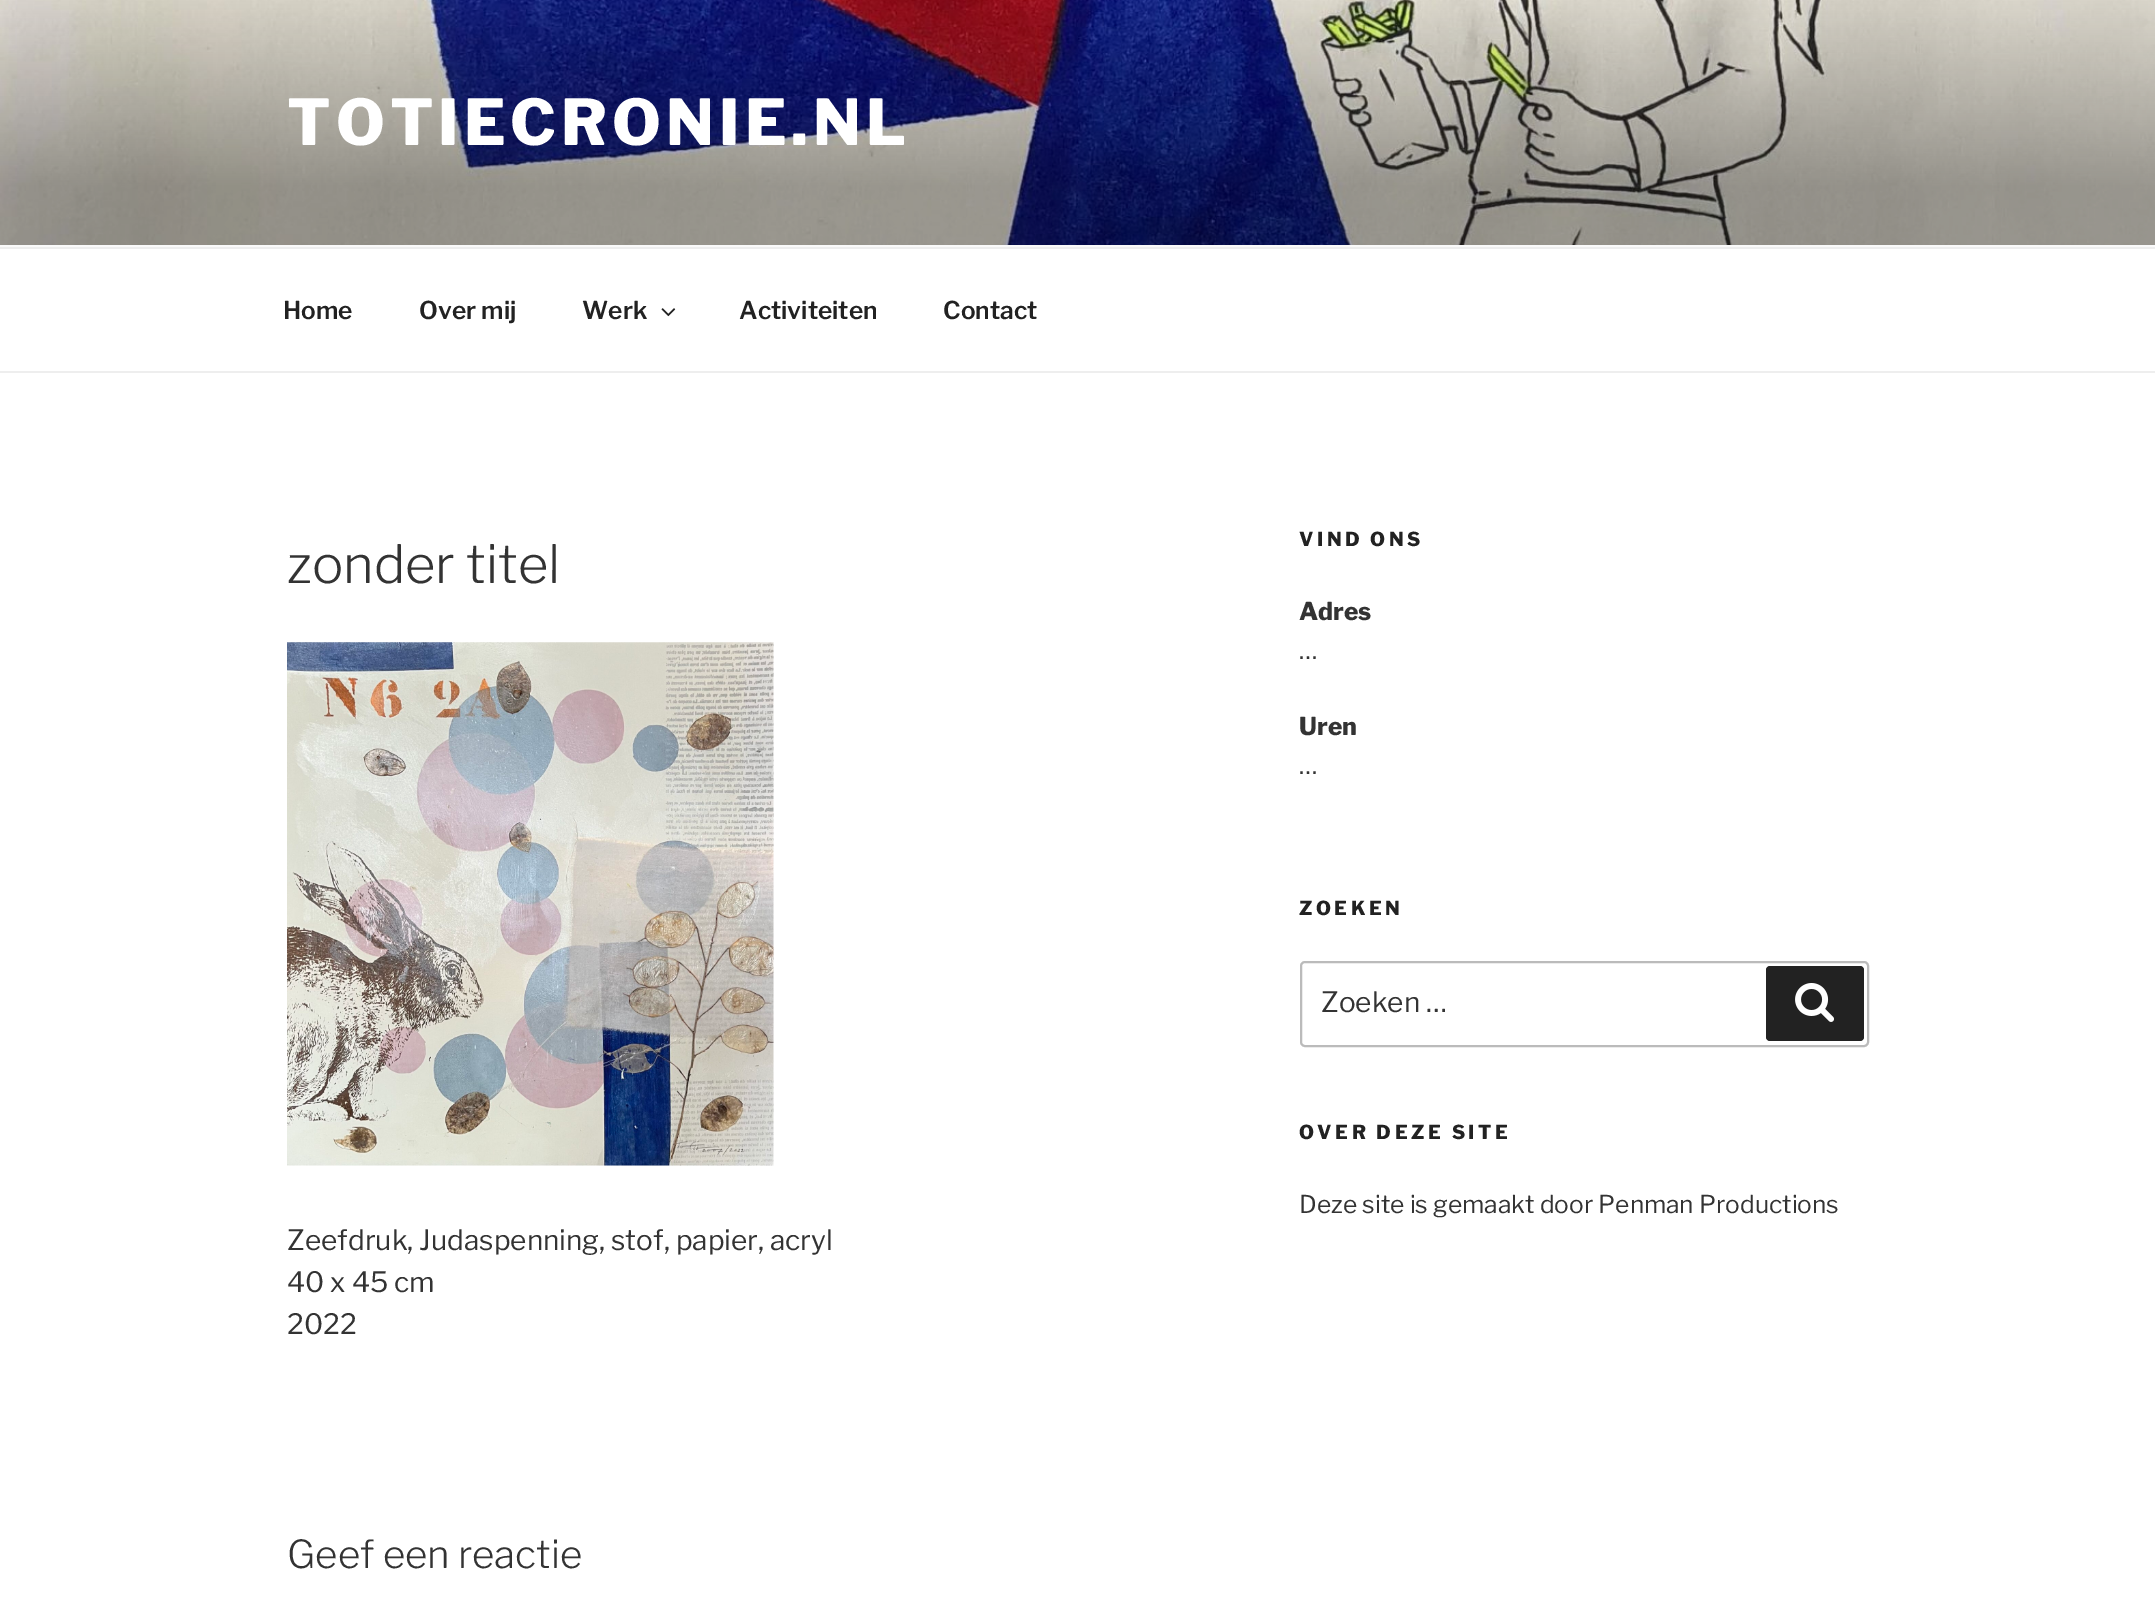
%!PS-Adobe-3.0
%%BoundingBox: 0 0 2155 1616
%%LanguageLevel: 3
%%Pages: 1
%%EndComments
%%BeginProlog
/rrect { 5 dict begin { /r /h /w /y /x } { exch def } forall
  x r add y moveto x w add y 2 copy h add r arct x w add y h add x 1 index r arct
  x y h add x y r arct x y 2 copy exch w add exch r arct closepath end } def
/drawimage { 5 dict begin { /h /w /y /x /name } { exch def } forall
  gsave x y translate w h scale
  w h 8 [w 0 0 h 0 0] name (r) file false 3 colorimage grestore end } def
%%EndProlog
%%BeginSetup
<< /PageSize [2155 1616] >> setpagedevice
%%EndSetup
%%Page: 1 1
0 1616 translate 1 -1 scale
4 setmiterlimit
1 setgray
0 0 2155 1616 rectfill
0.98 setgray
0 245 2155 2 rectfill
(images/1.raw) 0 0 2155 245 drawimage
0.933 setgray
0 247 2155 2 rectfill
0 371 2155 2 rectfill
(images/2.raw) 661 308 15 9 drawimage
(images/3.raw) 287 642 487 524 drawimage
0.733 setgray
2 setlinewidth
1301 962 567 84 4 rrect stroke
0.133 setgray
1766 966 98 75 4 rrect fill
(images/4.raw) 1795 983 39 39 drawimage
/LibreFranklin-ExtraBold [63 0 0 -63 0 0] selectfont
1 setgray
287 145 moveto 5 0 (TOTIECRONIE.NL) ashow
/LibreFranklin-SemiBold [24.5 0 0 -24.5 0 0] selectfont
0.133 setgray
283 319 moveto (Home) show
419 319 moveto (Over mij) show
582 319 moveto (Werk) show
739 319 moveto (Activiteiten) show
943 319 moveto (Contact) show
/LibreFranklin-Light [52.5 0 0 -52.5 0 0] selectfont
0.2 setgray
287 583 moveto (zonder titel) show
/LibreFranklin-Regular [28 0 0 -28 0 0] selectfont
287 1250 moveto (Zeefdruk, Judaspenning, stof, papier, acryl) show
287 1292 moveto (40 x 45 cm) show
287 1334 moveto (2022) show
/LibreFranklin-Light [38.5 0 0 -38.5 0 0] selectfont
287 1568 moveto (Geef een reactie) show
/LibreFranklin-ExtraBold [19.25 0 0 -19.25 0 0] selectfont
0.133 setgray
1299 546 moveto 3.5 0 (VIND ONS) ashow
/LibreFranklin-ExtraBold [24.5 0 0 -24.5 0 0] selectfont
0.2 setgray
1299 620 moveto (Adres) show
/LibreFranklin-Regular [24.5 0 0 -24.5 0 0] selectfont
1299 659 moveto (…) show
/LibreFranklin-ExtraBold [24.5 0 0 -24.5 0 0] selectfont
1299 735 moveto (Uren) show
/LibreFranklin-Regular [24.5 0 0 -24.5 0 0] selectfont
1299 774 moveto (…) show
/LibreFranklin-ExtraBold [19.25 0 0 -19.25 0 0] selectfont
0.133 setgray
1299 915 moveto 3.5 0 (ZOEKEN) ashow
/LibreFranklin-Regular [28 0 0 -28 0 0] selectfont
0.2 setgray
1321 1012 moveto (Zoeken …) show
/LibreFranklin-ExtraBold [19.25 0 0 -19.25 0 0] selectfont
0.133 setgray
1299 1139 moveto 3.5 0 (OVER DEZE SITE) ashow
/LibreFranklin-Regular [24.5 0 0 -24.5 0 0] selectfont
0.2 setgray
1299 1213 moveto (Deze site is gemaakt door Penman Productions) show
showpage
%%EOF
